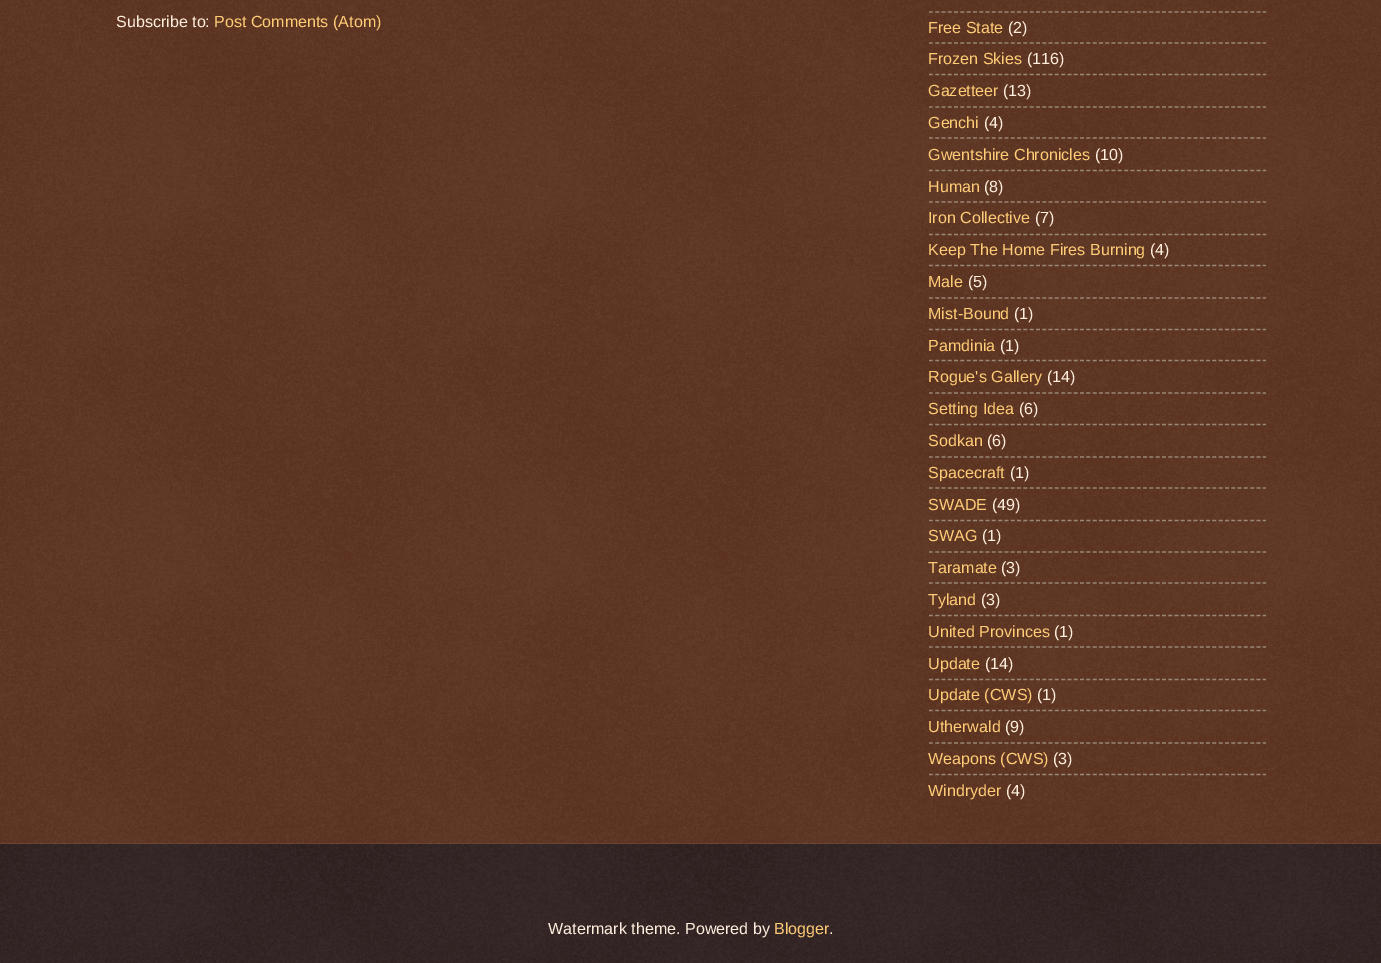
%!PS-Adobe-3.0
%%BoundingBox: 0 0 1381 963
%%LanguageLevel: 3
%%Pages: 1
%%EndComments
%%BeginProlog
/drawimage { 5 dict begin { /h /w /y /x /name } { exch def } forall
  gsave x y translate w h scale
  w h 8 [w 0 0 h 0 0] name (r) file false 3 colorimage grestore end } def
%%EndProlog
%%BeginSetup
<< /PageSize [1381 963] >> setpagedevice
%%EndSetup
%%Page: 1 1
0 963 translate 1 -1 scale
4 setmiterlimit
0.267 0.082 0 setrgbcolor
0 0 1381 963 rectfill
(images/1.raw) 0 0 1381 844 drawimage
0.6 0.533 0.467 setrgbcolor
1.2 setlinewidth
[3.75 2.55] 0 setdash
newpath 929 12 moveto 1266 12 lineto stroke
newpath 929 43 moveto 1266 43 lineto stroke
newpath 929 74.5 moveto 1266 74.5 lineto stroke
newpath 929 107 moveto 1266 107 lineto stroke
newpath 929 138 moveto 1266 138 lineto stroke
newpath 929 170.5 moveto 1266 170.5 lineto stroke
newpath 929 202 moveto 1266 202 lineto stroke
newpath 929 234.5 moveto 1266 234.5 lineto stroke
newpath 929 265.5 moveto 1266 265.5 lineto stroke
newpath 929 298 moveto 1266 298 lineto stroke
newpath 929 329.5 moveto 1266 329.5 lineto stroke
newpath 929 360.5 moveto 1266 360.5 lineto stroke
newpath 929 393 moveto 1266 393 lineto stroke
newpath 929 424.5 moveto 1266 424.5 lineto stroke
newpath 929 457 moveto 1266 457 lineto stroke
newpath 929 488 moveto 1266 488 lineto stroke
newpath 929 520.5 moveto 1266 520.5 lineto stroke
newpath 929 552 moveto 1266 552 lineto stroke
newpath 929 583 moveto 1266 583 lineto stroke
newpath 929 615.5 moveto 1266 615.5 lineto stroke
newpath 929 647 moveto 1266 647 lineto stroke
newpath 929 679.5 moveto 1266 679.5 lineto stroke
newpath 929 710.5 moveto 1266 710.5 lineto stroke
newpath 929 743 moveto 1266 743 lineto stroke
newpath 929 774.5 moveto 1266 774.5 lineto stroke
0.067 0 0 setrgbcolor
0 844 1381 119 rectfill
(images/2.raw) 0 843 1381 120 drawimage
/LiberationSans-Regular [16.1 0 0 -16.1 0 0] selectfont
1 0.933 0.867 setrgbcolor
116 27 moveto (Subscribe to:) show
1 0.8 0.467 setrgbcolor
214 27 moveto (Post Comments \(Atom\)) show
928 33 moveto (Free State) show
1 0.933 0.867 setrgbcolor
1008 33 moveto (\(2\)) show
1 0.8 0.467 setrgbcolor
928 64 moveto (Frozen Skies) show
1 0.933 0.867 setrgbcolor
1027 64 moveto (\(116\)) show
1 0.8 0.467 setrgbcolor
928 96 moveto (Gazetteer) show
1 0.933 0.867 setrgbcolor
1003 96 moveto (\(13\)) show
1 0.8 0.467 setrgbcolor
928 128 moveto (Genchi) show
1 0.933 0.867 setrgbcolor
984 128 moveto (\(4\)) show
1 0.8 0.467 setrgbcolor
928 160 moveto (Gwentshire Chronicles) show
1 0.933 0.867 setrgbcolor
1095 160 moveto (\(10\)) show
1 0.8 0.467 setrgbcolor
928 192 moveto (Human) show
1 0.933 0.867 setrgbcolor
984 192 moveto (\(8\)) show
1 0.8 0.467 setrgbcolor
928 223 moveto (Iron Collective) show
1 0.933 0.867 setrgbcolor
1035 223 moveto (\(7\)) show
1 0.8 0.467 setrgbcolor
928 255 moveto (Keep The Home Fires Burning) show
1 0.933 0.867 setrgbcolor
1150 255 moveto (\(4\)) show
1 0.8 0.467 setrgbcolor
928 287 moveto (Male) show
1 0.933 0.867 setrgbcolor
968 287 moveto (\(5\)) show
1 0.8 0.467 setrgbcolor
928 319 moveto (Mist-Bound) show
1 0.933 0.867 setrgbcolor
1014 319 moveto (\(1\)) show
1 0.8 0.467 setrgbcolor
928 351 moveto (Pamdinia) show
1 0.933 0.867 setrgbcolor
1000 351 moveto (\(1\)) show
1 0.8 0.467 setrgbcolor
928 382 moveto (Rogue's Gallery) show
1 0.933 0.867 setrgbcolor
1047 382 moveto (\(14\)) show
1 0.8 0.467 setrgbcolor
928 414 moveto (Setting Idea) show
1 0.933 0.867 setrgbcolor
1019 414 moveto (\(6\)) show
1 0.8 0.467 setrgbcolor
928 446 moveto (Sodkan) show
1 0.933 0.867 setrgbcolor
987 446 moveto (\(6\)) show
1 0.8 0.467 setrgbcolor
928 478 moveto (Spacecraft) show
1 0.933 0.867 setrgbcolor
1010 478 moveto (\(1\)) show
1 0.8 0.467 setrgbcolor
928 510 moveto (SWADE) show
1 0.933 0.867 setrgbcolor
992 510 moveto (\(49\)) show
1 0.8 0.467 setrgbcolor
928 541 moveto (SWAG) show
1 0.933 0.867 setrgbcolor
982 541 moveto (\(1\)) show
1 0.8 0.467 setrgbcolor
928 573 moveto (Taramate) show
1 0.933 0.867 setrgbcolor
1001 573 moveto (\(3\)) show
1 0.8 0.467 setrgbcolor
928 605 moveto (Tyland) show
1 0.933 0.867 setrgbcolor
981 605 moveto (\(3\)) show
1 0.8 0.467 setrgbcolor
928 637 moveto (United Provinces) show
1 0.933 0.867 setrgbcolor
1054 637 moveto (\(1\)) show
1 0.8 0.467 setrgbcolor
928 669 moveto (Update) show
1 0.933 0.867 setrgbcolor
985 669 moveto (\(14\)) show
1 0.8 0.467 setrgbcolor
928 700 moveto (Update \(CWS\)) show
1 0.933 0.867 setrgbcolor
1037 700 moveto (\(1\)) show
1 0.8 0.467 setrgbcolor
928 732 moveto (Utherwald) show
1 0.933 0.867 setrgbcolor
1005 732 moveto (\(9\)) show
1 0.8 0.467 setrgbcolor
928 764 moveto (Weapons \(CWS\)) show
1 0.933 0.867 setrgbcolor
1053 764 moveto (\(3\)) show
1 0.8 0.467 setrgbcolor
928 796 moveto (Windryder) show
1 0.933 0.867 setrgbcolor
1006 796 moveto (\(4\)) show
548 934 moveto (Watermark theme. Powered by) show
1 0.8 0.467 setrgbcolor
774 934 moveto (Blogger) show
1 0.933 0.867 setrgbcolor
829 934 moveto (.) show
showpage
%%EOF
